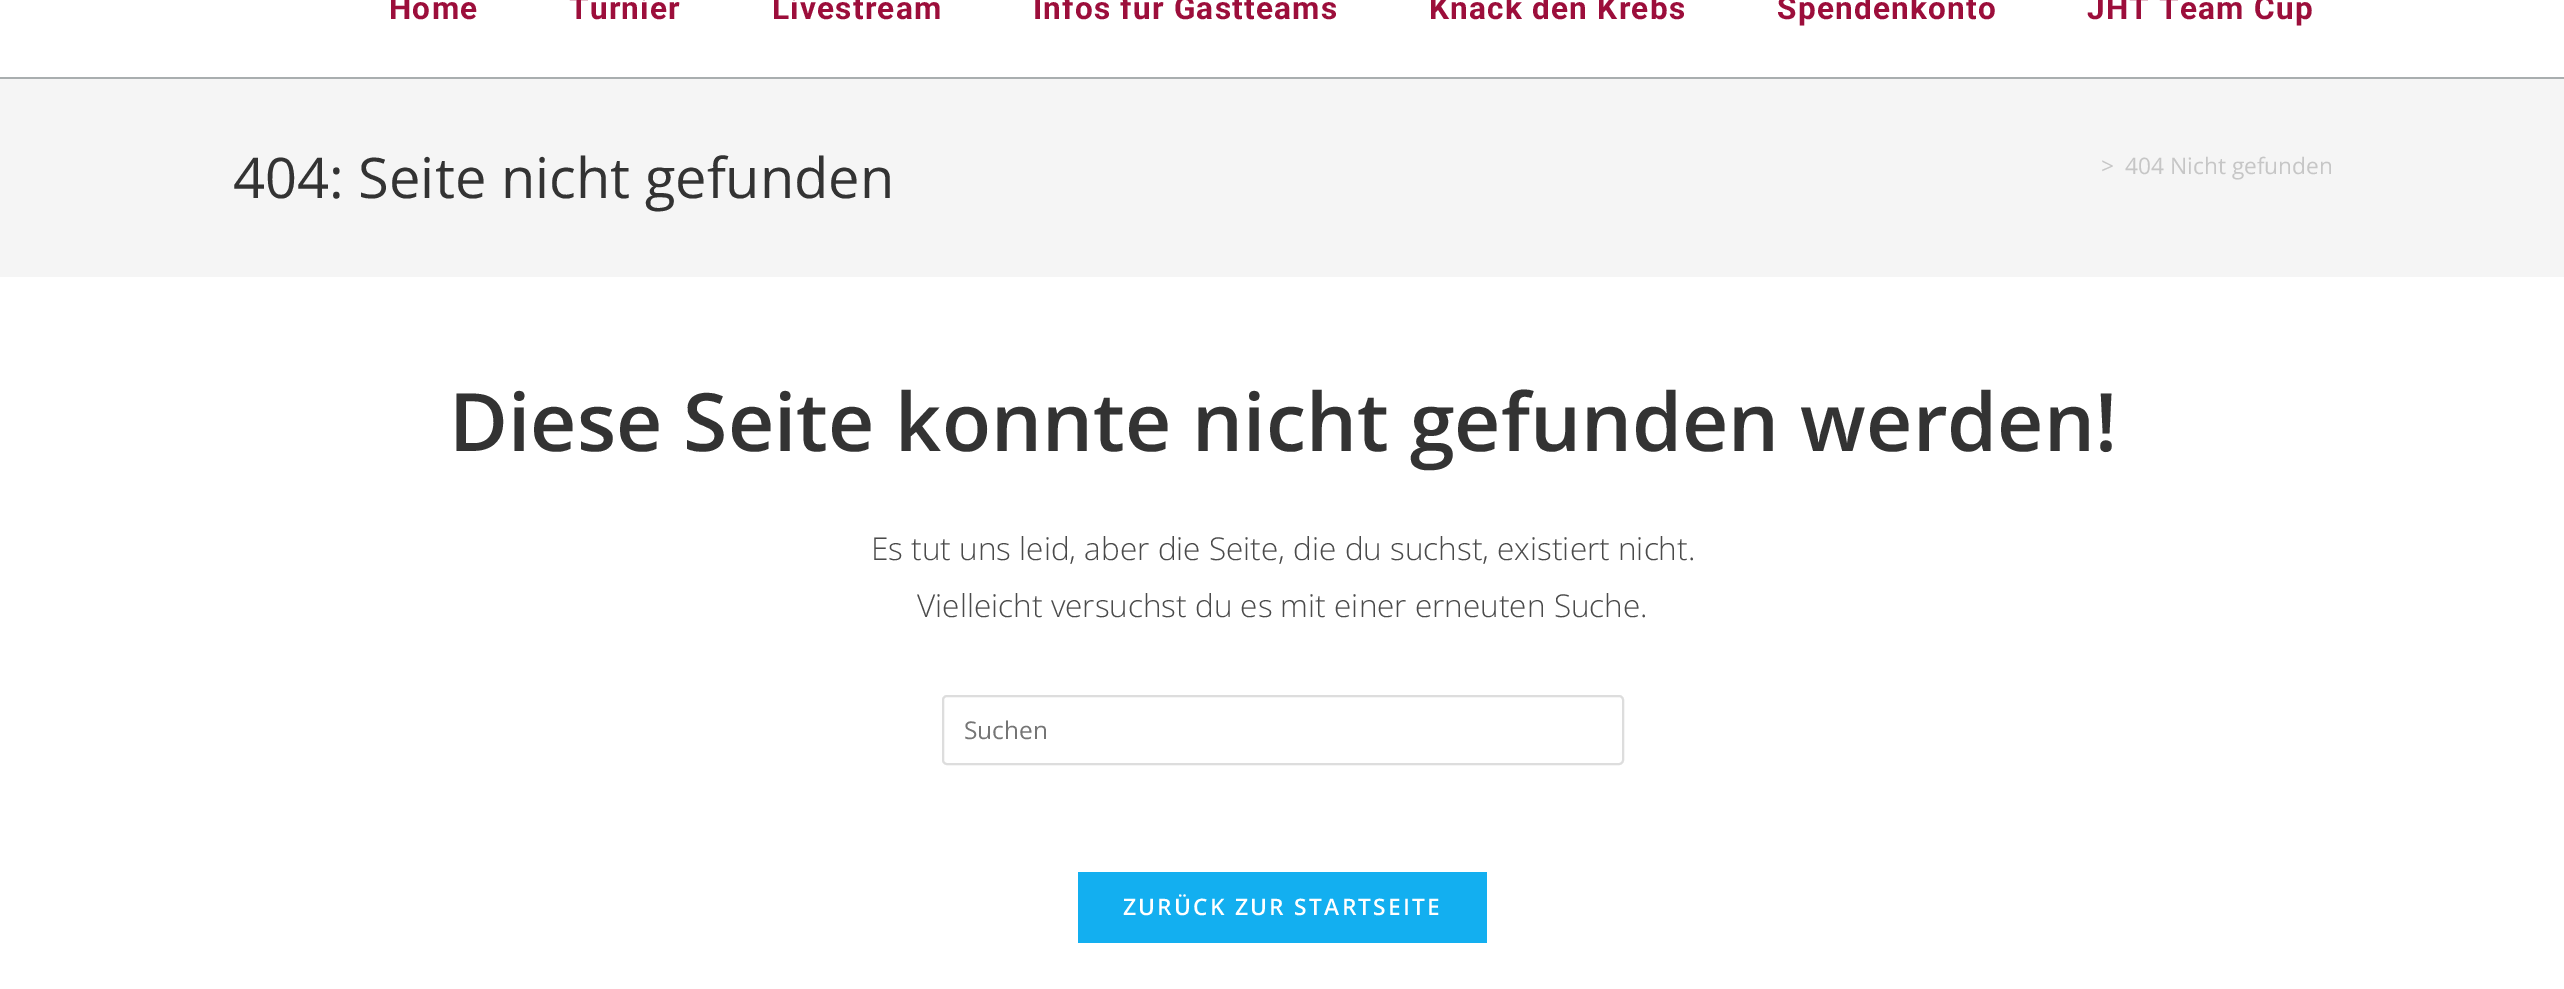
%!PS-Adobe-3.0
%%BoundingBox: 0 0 2564 989
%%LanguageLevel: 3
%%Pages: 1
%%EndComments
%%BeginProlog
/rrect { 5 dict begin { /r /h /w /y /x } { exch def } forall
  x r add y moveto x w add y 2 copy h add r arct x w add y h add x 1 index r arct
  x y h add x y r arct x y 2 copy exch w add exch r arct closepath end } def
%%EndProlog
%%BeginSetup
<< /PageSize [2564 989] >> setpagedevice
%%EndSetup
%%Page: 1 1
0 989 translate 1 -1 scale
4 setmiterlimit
1 setgray
0 0 2564 989 rectfill
0.663 0.682 0.686 setrgbcolor
0 77 2564 2 rectfill
0.961 setgray
0 79 2564 198 rectfill
0.867 setgray
2 setlinewidth
943 696 680 68 4 rrect stroke
0.075 0.686 0.941 setrgbcolor
1078 872 409 71 rectfill
/Roboto-Bold [31.5 0 0 -31.5 0 0] selectfont
0.612 0.055 0.231 setrgbcolor
389 19 moveto 1.25 0 (Home) ashow
569 19 moveto 1.25 0 (Turnier) ashow
772 19 moveto 1.25 0 (Livestream) ashow
1033 19 moveto 1.25 0 (Infos für Gastteams) ashow
1429 19 moveto 1.25 0 (Knack den Krebs) ashow
1777 19 moveto 1.25 0 (Spendenkonto) ashow
2087 19 moveto 1.25 0 (JHT Team Cup) ashow
/OpenSans-Regular [56 0 0 -56 0 0] selectfont
0.2 setgray
233 198 moveto (404: Seite nicht gefunden) show
/OpenSans-Regular [22.75 0 0 -22.75 0 0] selectfont
0.776 setgray
2101 174 moveto (>) show
2125 174 moveto (404 Nicht gefunden) show
/OpenSans-SemiBold [80.5 0 0 -80.5 0 0] selectfont
0.2 setgray
449 451 moveto (Diese Seite konnte nicht gefunden werden!) show
/OpenSans-Light [31.5 0 0 -31.5 0 0] selectfont
0.29 setgray
871 560 moveto (Es tut uns leid, aber die Seite, die du suchst, existiert nicht.) show
917 617 moveto (Vielleicht versuchst du es mit einer erneuten Suche.) show
/OpenSans-Regular [24.5 0 0 -24.5 0 0] selectfont
0.459 setgray
964 739 moveto (Suchen) show
/OpenSans-SemiBold [22.75 0 0 -22.75 0 0] selectfont
1 setgray
1123 915 moveto 2.25 0 (ZURÜCK ZUR STARTSEITE) ashow
showpage
%%EOF
